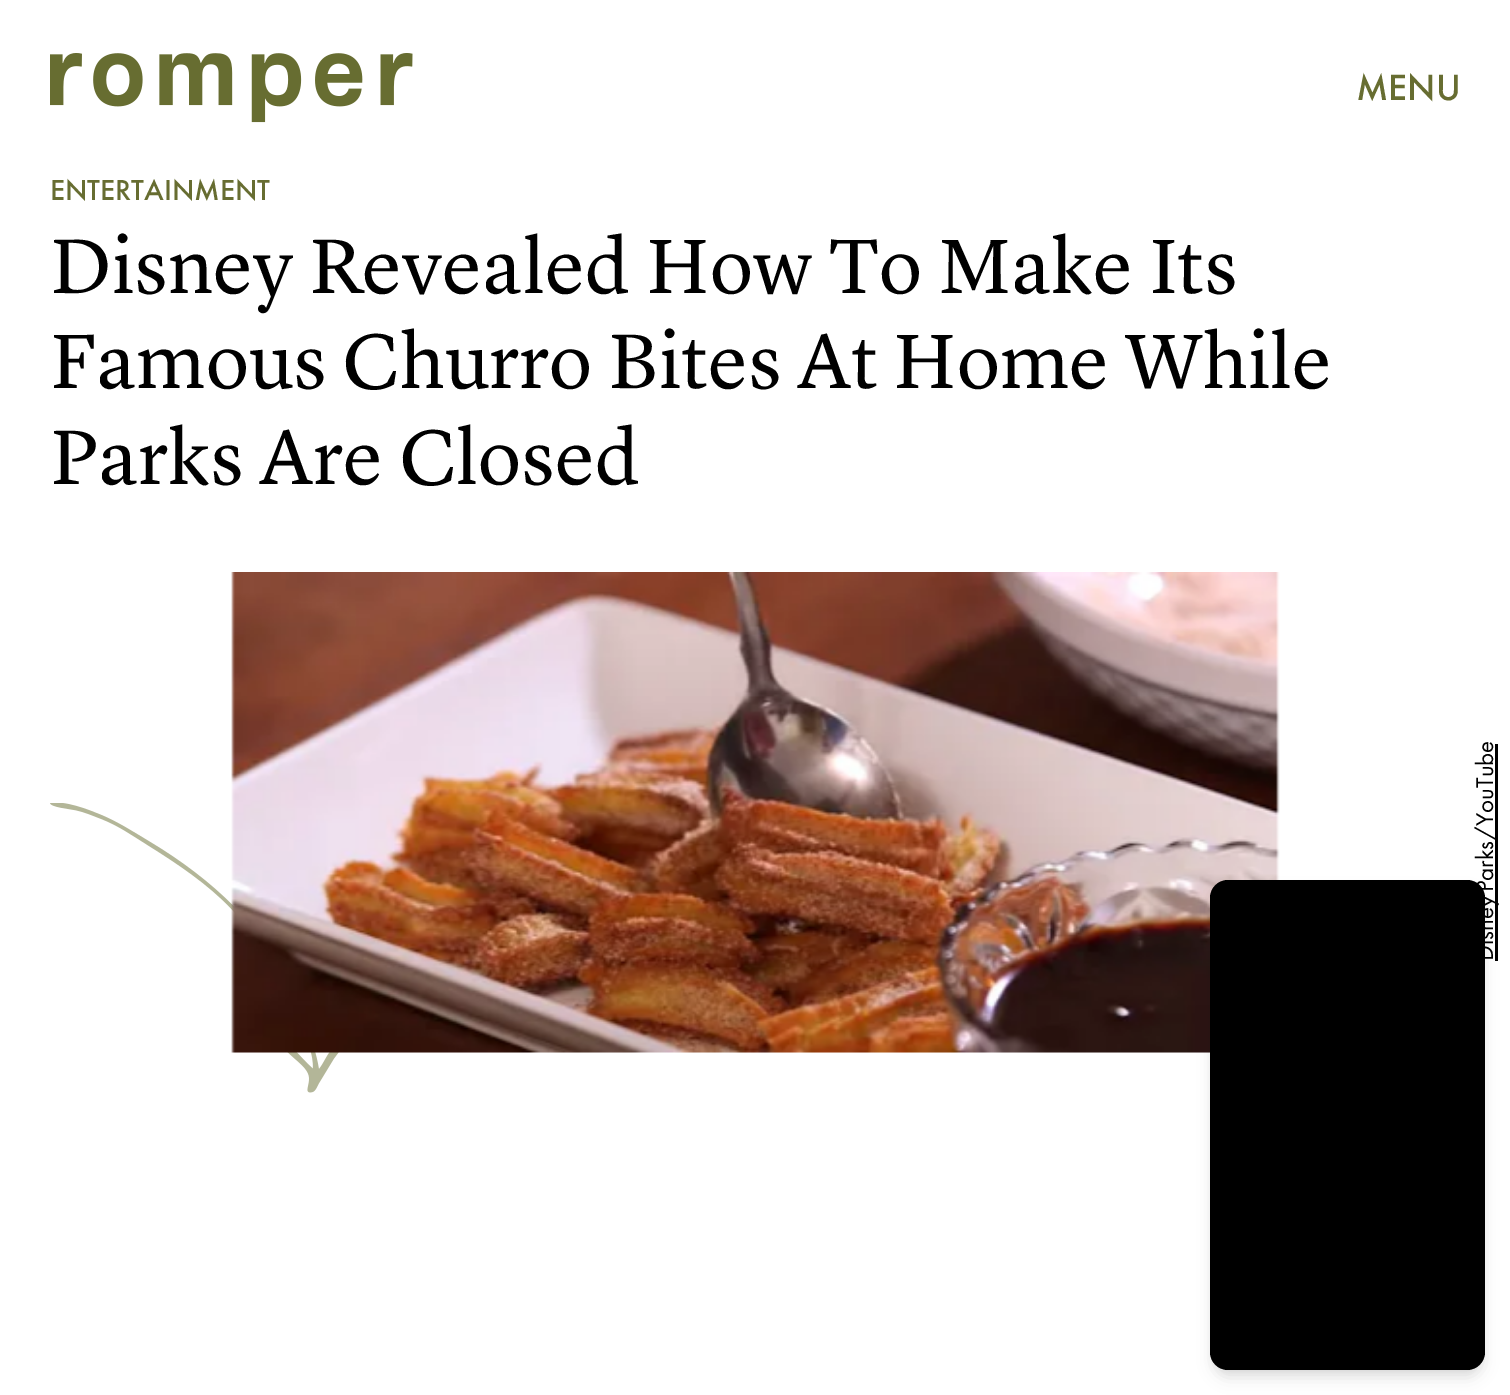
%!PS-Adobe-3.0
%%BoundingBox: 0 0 1510 1395
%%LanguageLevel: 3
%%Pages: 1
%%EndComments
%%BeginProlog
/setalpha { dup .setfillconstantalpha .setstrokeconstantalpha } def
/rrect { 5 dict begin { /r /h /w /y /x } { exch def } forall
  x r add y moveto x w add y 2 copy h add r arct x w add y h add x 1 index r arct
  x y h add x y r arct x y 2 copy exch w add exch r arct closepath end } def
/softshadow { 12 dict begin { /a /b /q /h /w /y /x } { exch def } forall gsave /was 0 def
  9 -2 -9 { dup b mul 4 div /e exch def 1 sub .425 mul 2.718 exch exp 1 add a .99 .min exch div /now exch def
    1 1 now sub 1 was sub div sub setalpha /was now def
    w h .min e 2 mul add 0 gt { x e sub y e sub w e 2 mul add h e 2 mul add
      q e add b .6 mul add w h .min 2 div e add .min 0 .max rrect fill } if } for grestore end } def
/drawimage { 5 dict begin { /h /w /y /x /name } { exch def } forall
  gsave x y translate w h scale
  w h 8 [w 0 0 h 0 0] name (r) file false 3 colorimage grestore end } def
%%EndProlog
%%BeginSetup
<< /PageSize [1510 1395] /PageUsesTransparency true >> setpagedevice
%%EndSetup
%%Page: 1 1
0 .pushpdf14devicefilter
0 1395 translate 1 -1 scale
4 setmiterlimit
1 setgray
0 0 1510 1395 rectfill
(images/1.raw) 50 53 363 70 drawimage
(images/2.raw) 50 803 289 290 drawimage
(images/3.raw) 231 572 1049 481 drawimage
0 setgray
1495 744 3 217 rectfill
1215 890 265 480 13 5 0.1 softshadow
1213 893 270 485 15 7.5 0.1 softshadow
1210 880 275 490 18 rrect fill
/FuturaPT-Medium [38 0 0 -38 0 0] selectfont
0.404 0.427 0.192 setrgbcolor
1356 100 moveto (MENU) show
/FuturaPT-Medium [30 0 0 -30 0 0] selectfont
50 200 moveto (ENTERTAINMENT) show
/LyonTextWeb-Regular [80 0 0 -80 0 0] selectfont
0 setgray
50 293 moveto (Disney Revealed How To Make Its) show
50 388 moveto (Famous Churro Bites At Home While) show
50 484 moveto (Parks Are Closed) show
/FuturaPT-Regular [25 0 0 -25 0 0] selectfont
gsave 1493 961 translate -90 rotate 0 0 moveto -2 0 32 (Disney Parks/YouTube) widthshow grestore
.poppdf14devicefilter showpage
%%EOF
